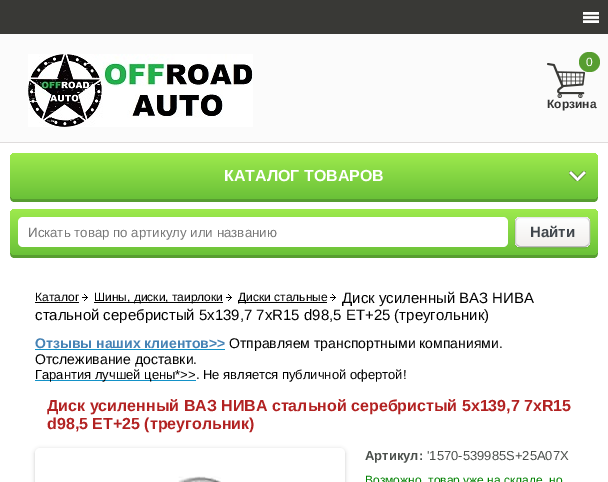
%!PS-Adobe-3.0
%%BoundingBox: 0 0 608 482
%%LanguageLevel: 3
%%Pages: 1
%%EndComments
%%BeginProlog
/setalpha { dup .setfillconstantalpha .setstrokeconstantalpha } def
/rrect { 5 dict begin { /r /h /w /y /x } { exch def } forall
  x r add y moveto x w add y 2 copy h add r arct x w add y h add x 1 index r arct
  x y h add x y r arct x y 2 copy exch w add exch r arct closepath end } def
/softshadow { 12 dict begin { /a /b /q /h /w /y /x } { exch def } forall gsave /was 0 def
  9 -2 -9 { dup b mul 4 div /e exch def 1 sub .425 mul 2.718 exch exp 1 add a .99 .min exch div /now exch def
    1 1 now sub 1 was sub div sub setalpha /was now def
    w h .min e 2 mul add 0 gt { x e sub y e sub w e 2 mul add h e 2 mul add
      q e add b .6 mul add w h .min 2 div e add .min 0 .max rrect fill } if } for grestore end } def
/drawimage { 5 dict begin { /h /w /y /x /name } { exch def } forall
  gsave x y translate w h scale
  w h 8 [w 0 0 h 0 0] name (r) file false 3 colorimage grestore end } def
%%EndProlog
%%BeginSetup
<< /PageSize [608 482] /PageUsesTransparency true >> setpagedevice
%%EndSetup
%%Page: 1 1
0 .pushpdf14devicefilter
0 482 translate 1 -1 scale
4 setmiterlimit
1 setgray
0 0 608 482 rectfill
0.984 setgray
0 34 608 108 rectfill
0.875 0.863 0.863 setrgbcolor
0 142 608 1 rectfill
0.224 0.224 0.212 setrgbcolor
0 0 608 34 rectfill
(images/1.raw) 583 12 16 11 drawimage
(images/2.raw) 28 54 225 73 drawimage
(images/3.raw) 547 63 38 35 drawimage
0.341 0.616 0.188 setrgbcolor
579 52 21 20 10 rrect fill
newpath 10 194 moveto 10 198 10 202 15 202 curveto 593 202 lineto 598 202 598 198 598 194 curveto 598 197 596 199 593 199 curveto 15 199 lineto 12 199 10 197 10 194 curveto closepath fill
gsave 10 153 588 46 5 rrect clip newpath
<< /ShadingType 2 /ColorSpace /DeviceRGB /Coords [304 153 304 199] /Extend [true true] /Function << /FunctionType 2 /Domain [0 1] /C0 [0.62 0.918 0.302] /C1 [0.416 0.757 0.22] /N 1 >> >> shfill grestore
(images/4.raw) 569 171 17 10 drawimage
newpath 10 250 moveto 10 254 10 258 15 258 curveto 593 258 lineto 598 258 598 254 598 250 curveto 598 253 596 255 593 255 curveto 15 255 lineto 12 255 10 253 10 250 curveto closepath fill
gsave 10 209 588 46 5 rrect clip newpath
<< /ShadingType 2 /ColorSpace /DeviceRGB /Coords [304 209 304 255] /Extend [true true] /Function << /FunctionType 2 /Domain [0 1] /C0 [0.62 0.918 0.302] /C1 [0.416 0.757 0.22] /N 1 >> >> shfill grestore
1 setgray
18 217 490 30 5 rrect fill
0 setgray
515 218 75 30 5 0.5 0.15 softshadow
gsave
515 217 75 30 5 rrect clip newpath
gsave newpath 515 217 moveto 590 217 lineto 590 218 lineto 515 218 lineto closepath clip newpath
<< /ShadingType 2 /ColorSpace /DeviceRGB /Coords [553 190 553 218] /Extend [true true] /Function << /FunctionType 2 /Domain [0 1] /C0 [0.996 1 1] /C1 [0.949 0.937 0.929] /N 1 >> >> shfill grestore
gsave newpath 515 218 moveto 590 218 lineto 590 246 lineto 515 246 lineto closepath clip newpath
<< /ShadingType 2 /ColorSpace /DeviceRGB /Coords [553 218 553 246] /Extend [true true] /Function << /FunctionType 2 /Domain [0 1] /C0 [0.996 1 1] /C1 [0.949 0.937 0.929] /N 1 >> >> shfill grestore
gsave newpath 515 246 moveto 590 246 lineto 590 247 lineto 515 247 lineto closepath clip newpath
<< /ShadingType 2 /ColorSpace /DeviceRGB /Coords [553 246 553 274] /Extend [true true] /Function << /FunctionType 2 /Domain [0 1] /C0 [0.996 1 1] /C1 [0.949 0.937 0.929] /N 1 >> >> shfill grestore
grestore
0.91 0.906 0.906 setrgbcolor
newpath 517 219 moveto 519.5 217.5 lineto 585.5 217.5 lineto 588 219 lineto stroke
0.816 0.812 0.812 setrgbcolor
newpath 588 219 moveto 589 219.5 589.5 221 589.5 222 curveto 589.5 242 lineto 589.5 243 589 244.5 588 245 curveto stroke
0.737 setgray
newpath 588 245 moveto 585.5 246.5 lineto 519.5 246.5 lineto 517 245 lineto stroke
0.816 0.812 0.812 setrgbcolor
newpath 517 245 moveto 516 244.5 515.5 243 515.5 242 curveto 515.5 222 lineto 515.5 221 516 219.5 517 219 curveto stroke
0 setgray
35 302 44 1 rectfill
(images/5.raw) 82 294 6 7 drawimage
94 302 129 1 rectfill
(images/5.raw) 226 294 6 7 drawimage
238 302 89 1 rectfill
(images/5.raw) 330 294 6 7 drawimage
0.075 0.569 0.78 setrgbcolor
35 349 190 1 rectfill
35 380 161 1 rectfill
0 setgray
35 449 310 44 5 2 0.2 softshadow
1 setgray
35 448 310 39 5 rrect fill
(images/6.raw) 178 476 43 6 drawimage
/LiberationSans-Regular [12 0 0 -12 0 0] selectfont
586 66 moveto (0) show
/LiberationSans-Bold [12 0 0 -12 0 0] selectfont
0.2 setgray
547 108 moveto (Корзина) show
/LiberationSans-Bold [16 0 0 -16 0 0] selectfont
1 setgray
224 181 moveto (КАТАЛОГ ТОВАРОВ) show
/LiberationSans-Regular [13.3 0 0 -13.3 0 0] selectfont
0.459 setgray
28 237 moveto (Искать товар по артикулу или названию) show
/LiberationSans-Bold [15 0 0 -15 0 0] selectfont
0.247 0.271 0.294 setrgbcolor
530 237 moveto (Найти) show
/LiberationSans-Regular [12 0 0 -12 0 0] selectfont
0 setgray
35 301 moveto (Каталог) show
94 301 moveto (Шины, диски, таирлоки) show
238 301 moveto (Диски стальные) show
/LiberationSans-Regular [15 0 0 -15 0 0] selectfont
342 303 moveto (Диск усиленный ВАЗ НИВА) show
35 320 moveto (стальной серебристый 5x139,7 7xR15 d98,5 ET+25 \(треугольник\)) show
/LiberationSans-Bold [14 0 0 -14 0 0] selectfont
0.275 0.51 0.706 setrgbcolor
35 348 moveto (Отзывы наших клиентов>>) show
/LiberationSans-Regular [14 0 0 -14 0 0] selectfont
0 setgray
229 348 moveto (Отправляем транспортными компаниями.) show
35 364 moveto (Отслеживание доставки.) show
/LiberationSans-Regular [13 0 0 -13 0 0] selectfont
35 379 moveto (Гарантия лучшей цены*>>. Не является публичной офертой!) show
/LiberationSans-Bold [16 0 0 -16 0 0] selectfont
0.698 0.133 0.133 setrgbcolor
47 411 moveto (Диск усиленный ВАЗ НИВА стальной серебристый 5x139,7 7xR15) show
47 429 moveto (d98,5 ET+25 \(треугольник\)) show
/LiberationSans-Bold [13 0 0 -13 0 0] selectfont
0.29 0.31 0.294 setrgbcolor
365 460 moveto (Артикул:) show
/LiberationSans-Regular [13 0 0 -13 0 0] selectfont
427 460 moveto ('1570-539985S+25A07X) show
/LiberationSans-Regular [12 0 0 -12 0 0] selectfont
0 0.502 0 setrgbcolor
365 484 moveto (Возможно, товар уже на складе, но) show
.poppdf14devicefilter showpage
%%EOF
